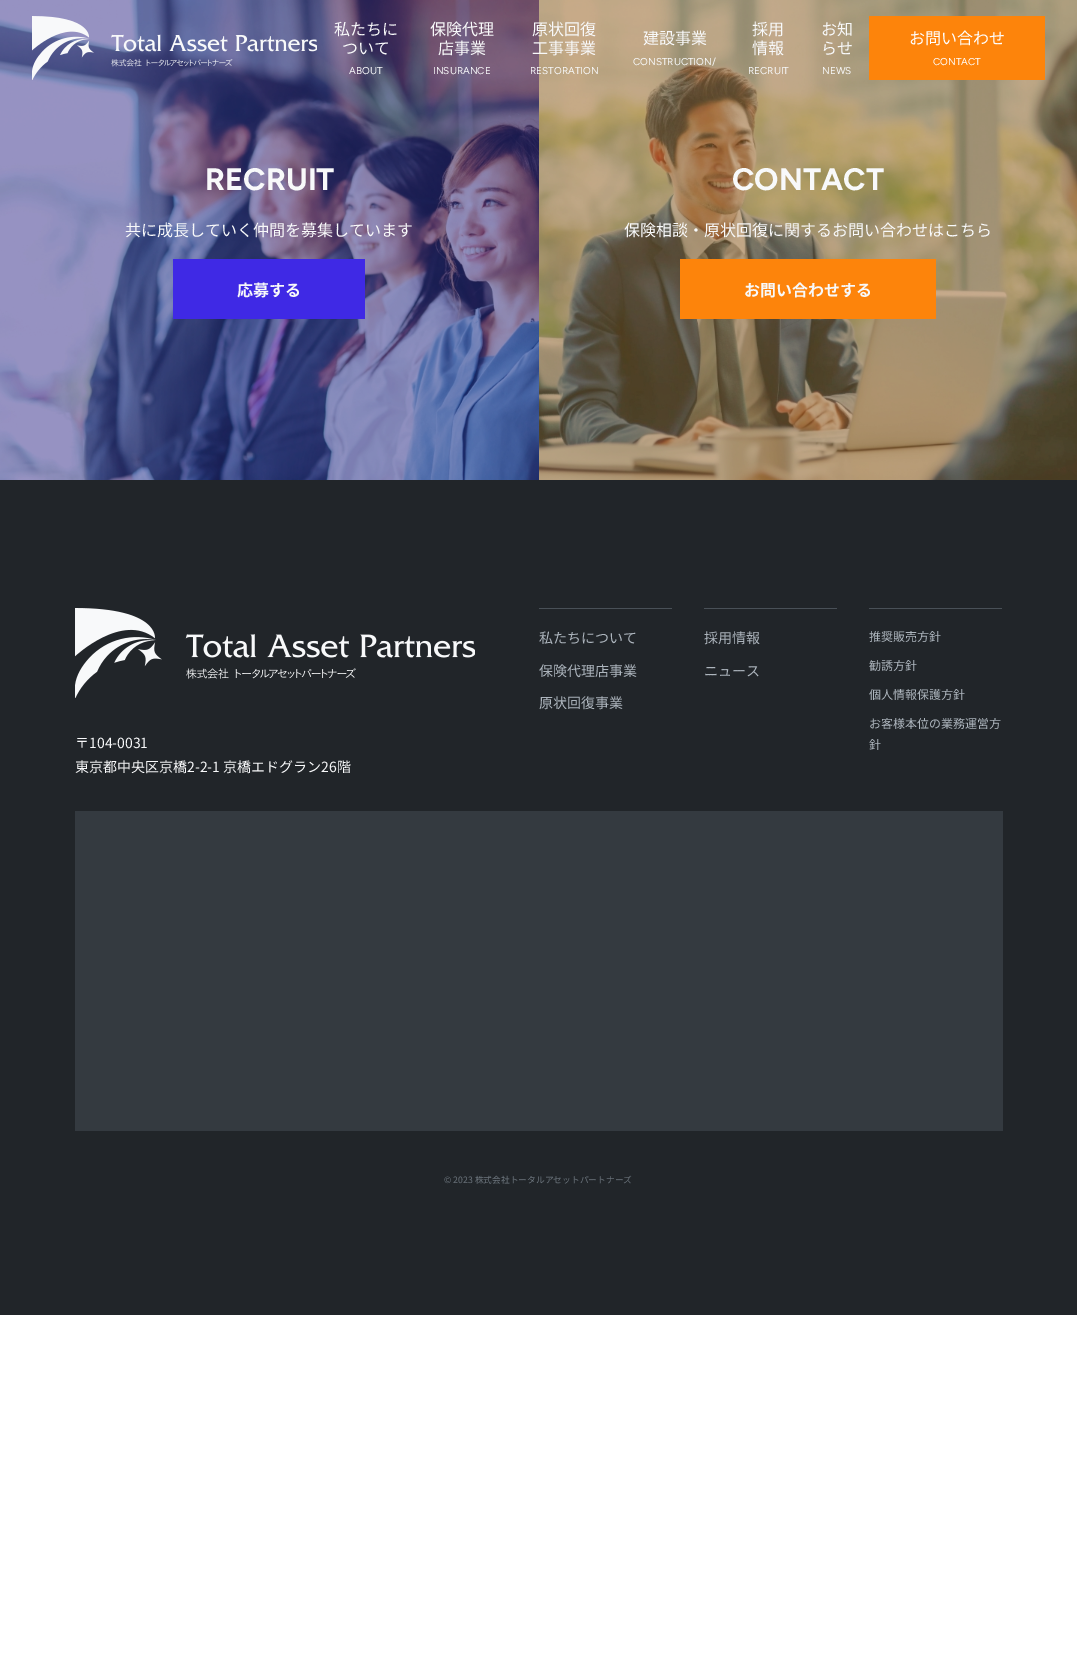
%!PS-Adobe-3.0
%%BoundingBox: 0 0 1077 1663
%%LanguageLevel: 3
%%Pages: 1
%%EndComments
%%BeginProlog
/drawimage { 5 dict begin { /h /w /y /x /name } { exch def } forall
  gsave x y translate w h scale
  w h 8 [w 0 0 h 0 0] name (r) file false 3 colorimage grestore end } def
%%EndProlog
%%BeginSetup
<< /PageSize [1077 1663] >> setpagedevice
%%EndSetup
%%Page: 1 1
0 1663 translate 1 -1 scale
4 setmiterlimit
1 setgray
0 0 1077 1663 rectfill
(images/2.raw) 0 0 539 480 drawimage
(images/1.raw) 32 16 285 64 drawimage
(images/3.raw) 539 0 538 480 drawimage
0.992 0.518 0.043 setrgbcolor
869 16 176 64 rectfill
0.247 0.161 0.898 setrgbcolor
173 259 192 60 rectfill
0.992 0.518 0.043 setrgbcolor
680 259 256 60 rectfill
0.129 0.145 0.161 setrgbcolor
0 480 1077 835 rectfill
0.286 0.314 0.341 setrgbcolor
539 608 133 1 rectfill
704 608 133 1 rectfill
869 608 133 1 rectfill
(images/4.raw) 75 608 400 90 drawimage
0.204 0.227 0.251 setrgbcolor
75 811 928 320 rectfill
/NotoSansJP-Regular [16 0 0 -16 0 0] selectfont
0.973 0.976 0.98 setrgbcolor
334 35 moveto (私たちに) show
342 54 moveto (ついて) show
/Figtree-Regular [10 0 0 -10 0 0] selectfont
349 74 moveto (ABOUT) show
/NotoSansJP-Regular [16 0 0 -16 0 0] selectfont
430 35 moveto (保険代理) show
438 54 moveto (店事業) show
/Figtree-Regular [10 0 0 -10 0 0] selectfont
433 74 moveto (INSURANCE) show
/NotoSansJP-Regular [16 0 0 -16 0 0] selectfont
532 35 moveto (原状回復) show
532 54 moveto (工事事業) show
/Figtree-Regular [10 0 0 -10 0 0] selectfont
530 74 moveto (RESTORATION) show
/NotoSansJP-Regular [16 0 0 -16 0 0] selectfont
643 44 moveto (建設事業) show
/Figtree-Regular [10 0 0 -10 0 0] selectfont
633 65 moveto (CONSTRUCTION/) show
/NotoSansJP-Regular [16 0 0 -16 0 0] selectfont
752 35 moveto (採用) show
752 54 moveto (情報) show
/Figtree-Regular [10 0 0 -10 0 0] selectfont
748 74 moveto (RECRUIT) show
/NotoSansJP-Regular [16 0 0 -16 0 0] selectfont
821 35 moveto (お知) show
821 54 moveto (らせ) show
/Figtree-Regular [10 0 0 -10 0 0] selectfont
822 74 moveto (NEWS) show
/NotoSansJP-Regular [16 0 0 -16 0 0] selectfont
1 setgray
909 44 moveto (お問い合わせ) show
/Figtree-Regular [10 0 0 -10 0 0] selectfont
933 65 moveto (CONTACT) show
/Figtree-Bold [31 0 0 -31 0 0] selectfont
0.973 0.976 0.98 setrgbcolor
205 190 moveto (RECRUIT) show
/NotoSansJP-Regular [16 0 0 -16 0 0] selectfont
125 236 moveto (共に成長していく仲間を募集しています) show
/NotoSansJP-Bold [16 0 0 -16 0 0] selectfont
237 296 moveto (応募する) show
/Figtree-Bold [31 0 0 -31 0 0] selectfont
732 190 moveto (CONTACT) show
/NotoSansJP-Regular [16 0 0 -16 0 0] selectfont
624 236 moveto (保険相談・原状回復に関するお問い合わせはこちら) show
/NotoSansJP-Bold [16 0 0 -16 0 0] selectfont
744 296 moveto (お問い合わせする) show
/NotoSansJP-Regular [14 0 0 -14 0 0] selectfont
0.678 0.71 0.741 setrgbcolor
539 643 moveto (私たちについて) show
539 676 moveto (保険代理店事業) show
539 708 moveto (原状回復事業) show
704 643 moveto (採用情報) show
704 676 moveto (ニュース) show
/NotoSansJP-Regular [12 0 0 -12 0 0] selectfont
869 641 moveto (推奨販売方針) show
869 670 moveto (勧誘方針) show
869 699 moveto (個人情報保護方針) show
869 728 moveto (お客様本位の業務運営方) show
869 749 moveto (針) show
/NotoSansJP-Regular [14 0 0 -14 0 0] selectfont
0.973 0.976 0.98 setrgbcolor
75 748 moveto (〒104-0031) show
75 772 moveto (東京都中央区京橋2-2-1 京橋エドグラン26階) show
/NotoSansJP-Regular [8.75 0 0 -8.75 0 0] selectfont
0.424 0.459 0.49 setrgbcolor
444 1183 moveto (© 2023 株式会社トータルアセットパートナーズ) show
showpage
%%EOF
